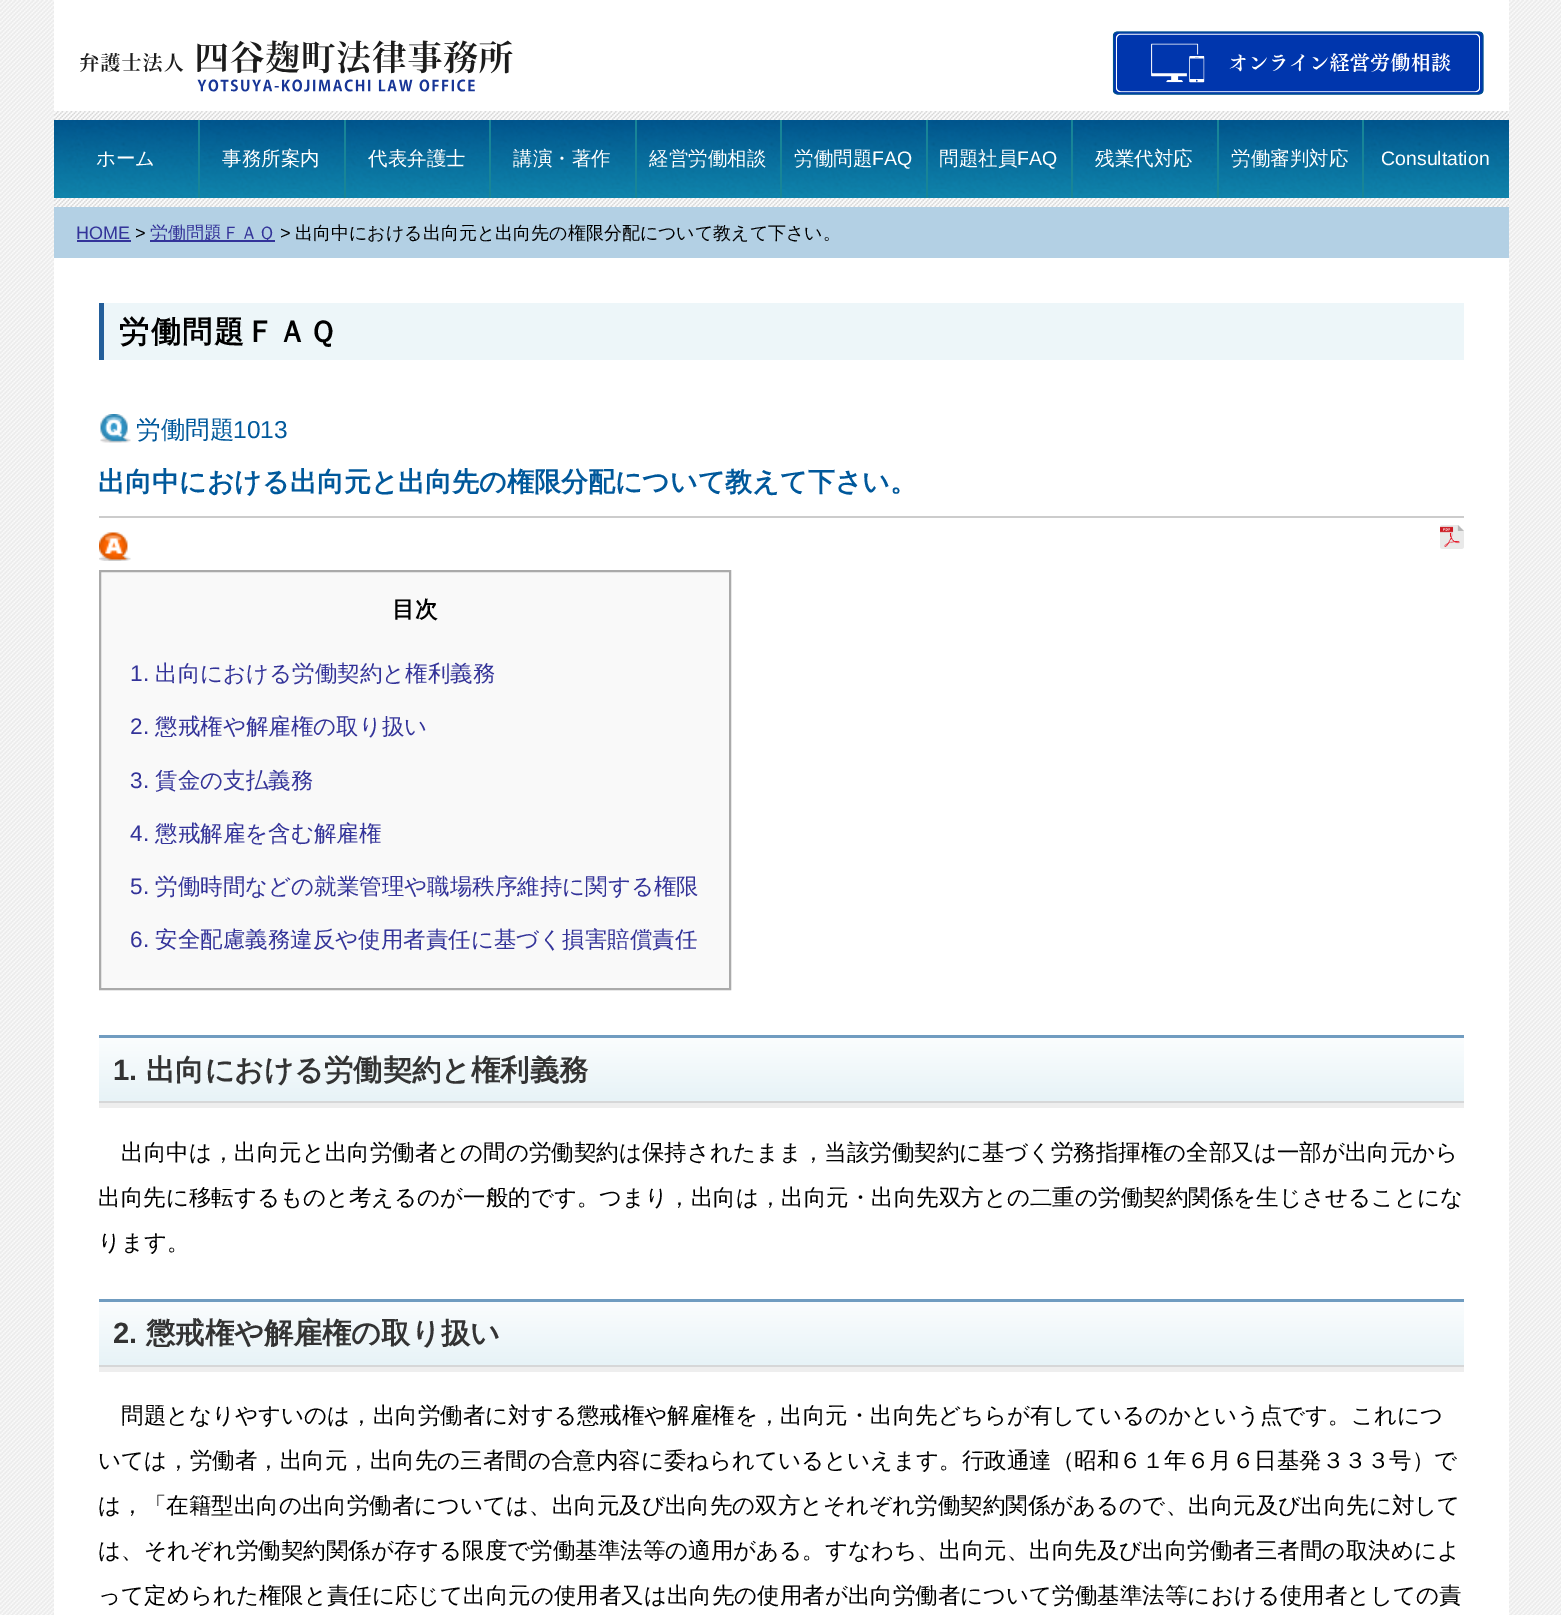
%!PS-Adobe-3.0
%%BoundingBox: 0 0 1561 1615
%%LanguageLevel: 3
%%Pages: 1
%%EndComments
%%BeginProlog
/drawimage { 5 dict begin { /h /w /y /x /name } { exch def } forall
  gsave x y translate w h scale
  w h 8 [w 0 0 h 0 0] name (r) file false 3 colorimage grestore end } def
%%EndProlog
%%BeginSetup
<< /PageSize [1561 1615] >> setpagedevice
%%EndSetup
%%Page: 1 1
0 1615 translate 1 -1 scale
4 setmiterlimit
1 setgray
0 0 1561 1615 rectfill
(images/1.raw) 0 0 1561 1615 drawimage
54 0 1455 1615 rectfill
(images/2.raw) 80 40 433 52 drawimage
(images/3.raw) 1112 31 372 64 drawimage
(images/4.raw) 54 111 1455 96 drawimage
(images/5.raw) 54 120 1455 78 drawimage
0.094 0.522 0.592 setrgbcolor
198 120 2 78 rectfill
344 120 2 78 rectfill
489 120 2 78 rectfill
635 120 2 78 rectfill
780 120 2 78 rectfill
926 120 2 78 rectfill
1071 120 2 78 rectfill
1217 120 2 78 rectfill
1362 120 2 78 rectfill
0.702 0.816 0.894 setrgbcolor
54 207 1455 51 rectfill
0.2 0.2 0.6 setrgbcolor
77 240 54 2 rectfill
150 240 125 2 rectfill
0.929 0.965 0.976 setrgbcolor
104 303 1360 57 rectfill
0.137 0.369 0.604 setrgbcolor
99 303 5 57 rectfill
(images/6.raw) 100 414 31 29 drawimage
(images/7.raw) 99 532 32 29 drawimage
0.8 setgray
99 516 1365 2 rectfill
(images/8.raw) 1440 525 24 24 drawimage
0.976 setgray
newpath 100 571 moveto 730 571 lineto 730 989 lineto 100 989 lineto closepath gsave fill grestore
0.667 setgray
2 setlinewidth
stroke
gsave newpath 99 1038 moveto 1464 1038 lineto 1464 1101 lineto 99 1101 lineto closepath clip newpath
<< /ShadingType 2 /ColorSpace /DeviceRGB /Coords [782 1038 782 1103] /Extend [true true] /Function << /FunctionType 2 /Domain [0 1] /C0 [0.984 0.992 0.996] /C1 [0.902 0.953 0.969] /N 1 >> >> shfill grestore
0.439 0.612 0.753 setrgbcolor
99 1035 1365 3 rectfill
0.933 setgray
99 1103 1365 5 rectfill
0.839 0.843 0.847 setrgbcolor
99 1101 1365 2 rectfill
gsave newpath 99 1302 moveto 1464 1302 lineto 1464 1365 lineto 99 1365 lineto closepath clip newpath
<< /ShadingType 2 /ColorSpace /DeviceRGB /Coords [782 1302 782 1367] /Extend [true true] /Function << /FunctionType 2 /Domain [0 1] /C0 [0.984 0.992 0.996] /C1 [0.902 0.953 0.969] /N 1 >> >> shfill grestore
0.439 0.612 0.753 setrgbcolor
99 1299 1365 3 rectfill
0.933 setgray
99 1367 1365 5 rectfill
0.839 0.843 0.847 setrgbcolor
99 1365 1365 2 rectfill
/WenQuanYiZenHei-Medium [19.5 0 0 -19.5 0 0] selectfont
1 setgray
96 165 moveto (ホーム) show
222 165 moveto (事務所案内) show
368 165 moveto (代表弁護士) show
513 165 moveto (講演・著作) show
649 165 moveto (経営労働相談) show
794 165 moveto (労働問題) show
/LiberationSans-Regular [19.5 0 0 -19.5 0 0] selectfont
872 165 moveto (FAQ) show
/WenQuanYiZenHei-Medium [19.5 0 0 -19.5 0 0] selectfont
939 165 moveto (問題社員) show
/LiberationSans-Regular [19.5 0 0 -19.5 0 0] selectfont
1017 165 moveto (FAQ) show
/WenQuanYiZenHei-Medium [19.5 0 0 -19.5 0 0] selectfont
1095 165 moveto (残業代対応) show
1231 165 moveto (労働審判対応) show
/LiberationSans-Regular [19.5 0 0 -19.5 0 0] selectfont
1381 165 moveto (Consultation) show
/LiberationSans-Regular [18 0 0 -18 0 0] selectfont
0.2 0.2 0.6 setrgbcolor
76 239 moveto (HOME) show
0 setgray
135 239 moveto (>) show
/WenQuanYiZenHei-Medium [18 0 0 -18 0 0] selectfont
0.2 0.2 0.6 setrgbcolor
150 239 moveto (労働問題ＦＡＱ) show
/LiberationSans-Regular [18 0 0 -18 0 0] selectfont
0 setgray
280 239 moveto (>) show
/WenQuanYiZenHei-Medium [18 0 0 -18 0 0] selectfont
295 239 moveto (出向中における出向元と出向先の権限分配について教えて下さい。) show
/WenQuanYiZenHei-Bold [30 0 0 -30 0 0] selectfont
119 342 moveto 1.5 0 (労働問題ＦＡＱ) ashow
/WenQuanYiZenHei-Medium [24.5 0 0 -24.5 0 0] selectfont
0 0.345 0.608 setrgbcolor
136 438 moveto (労働問題) show
/LiberationSans-Regular [24.5 0 0 -24.5 0 0] selectfont
233 438 moveto (1013) show
/WenQuanYiZenHei-Bold [27 0 0 -27 0 0] selectfont
98 491 moveto (出向中における出向元と出向先の権限分配について教えて下さい。) show
/WenQuanYiZenHei-Bold [22.5 0 0 -22.5 0 0] selectfont
0 setgray
392 617 moveto (目次) show
/LiberationSans-Regular [22.5 0 0 -22.5 0 0] selectfont
0.2 0.2 0.6 setrgbcolor
130 681 moveto (1.) show
/WenQuanYiZenHei-Medium [22.5 0 0 -22.5 0 0] selectfont
155 681 moveto (出向における労働契約と権利義務) show
/LiberationSans-Regular [22.5 0 0 -22.5 0 0] selectfont
130 734 moveto (2.) show
/WenQuanYiZenHei-Medium [22.5 0 0 -22.5 0 0] selectfont
155 734 moveto (懲戒権や解雇権の取り扱い) show
/LiberationSans-Regular [22.5 0 0 -22.5 0 0] selectfont
130 788 moveto (3.) show
/WenQuanYiZenHei-Medium [22.5 0 0 -22.5 0 0] selectfont
155 788 moveto (賃金の支払義務) show
/LiberationSans-Regular [22.5 0 0 -22.5 0 0] selectfont
130 841 moveto (4.) show
/WenQuanYiZenHei-Medium [22.5 0 0 -22.5 0 0] selectfont
155 841 moveto (懲戒解雇を含む解雇権) show
/LiberationSans-Regular [22.5 0 0 -22.5 0 0] selectfont
130 894 moveto (5.) show
/WenQuanYiZenHei-Medium [22.5 0 0 -22.5 0 0] selectfont
155 894 moveto (労働時間などの就業管理や職場秩序維持に関する権限) show
/LiberationSans-Regular [22.5 0 0 -22.5 0 0] selectfont
130 947 moveto (6.) show
/WenQuanYiZenHei-Medium [22.5 0 0 -22.5 0 0] selectfont
155 947 moveto (安全配慮義務違反や使用者責任に基づく損害賠償責任) show
/LiberationSans-Bold [29.25 0 0 -29.25 0 0] selectfont
0.2 setgray
113 1080 moveto (1.) show
/WenQuanYiZenHei-Bold [29.25 0 0 -29.25 0 0] selectfont
146 1080 moveto (出向における労働契約と権利義務) show
/WenQuanYiZenHei-Medium [22.5 0 0 -22.5 0 0] selectfont
0 setgray
121 1160 moveto (出向中は，出向元と出向労働者との間の労働契約は保持されたまま，当該労働契約に基づく労務指揮権の全部又は一部が出向元から) show
98 1205 moveto (出向先に移転するものと考えるのが一般的です。つまり，出向は，出向元・出向先双方との二重の労働契約関係を生じさせることにな) show
98 1250 moveto (ります。) show
/LiberationSans-Bold [29.25 0 0 -29.25 0 0] selectfont
0.2 setgray
113 1343 moveto (2.) show
/WenQuanYiZenHei-Bold [29.25 0 0 -29.25 0 0] selectfont
146 1343 moveto (懲戒権や解雇権の取り扱い) show
/WenQuanYiZenHei-Medium [22.5 0 0 -22.5 0 0] selectfont
0 setgray
121 1423 moveto (問題となりやすいのは，出向労働者に対する懲戒権や解雇権を，出向元・出向先どちらが有しているのかという点です。これにつ) show
98 1468 moveto (いては，労働者，出向元，出向先の三者間の合意内容に委ねられているといえます。行政通達（昭和６１年６月６日基発３３３号）で) show
98 1513 moveto (は，「在籍型出向の出向労働者については、出向元及び出向先の双方とそれぞれ労働契約関係があるので、出向元及び出向先に対して) show
98 1558 moveto (は、それぞれ労働契約関係が存する限度で労働基準法等の適用がある。すなわち、出向元、出向先及び出向労働者三者間の取決めによ) show
98 1603 moveto (って定められた権限と責任に応じて出向元の使用者又は出向先の使用者が出向労働者について労働基準法等における使用者としての責) show
showpage
%%EOF
